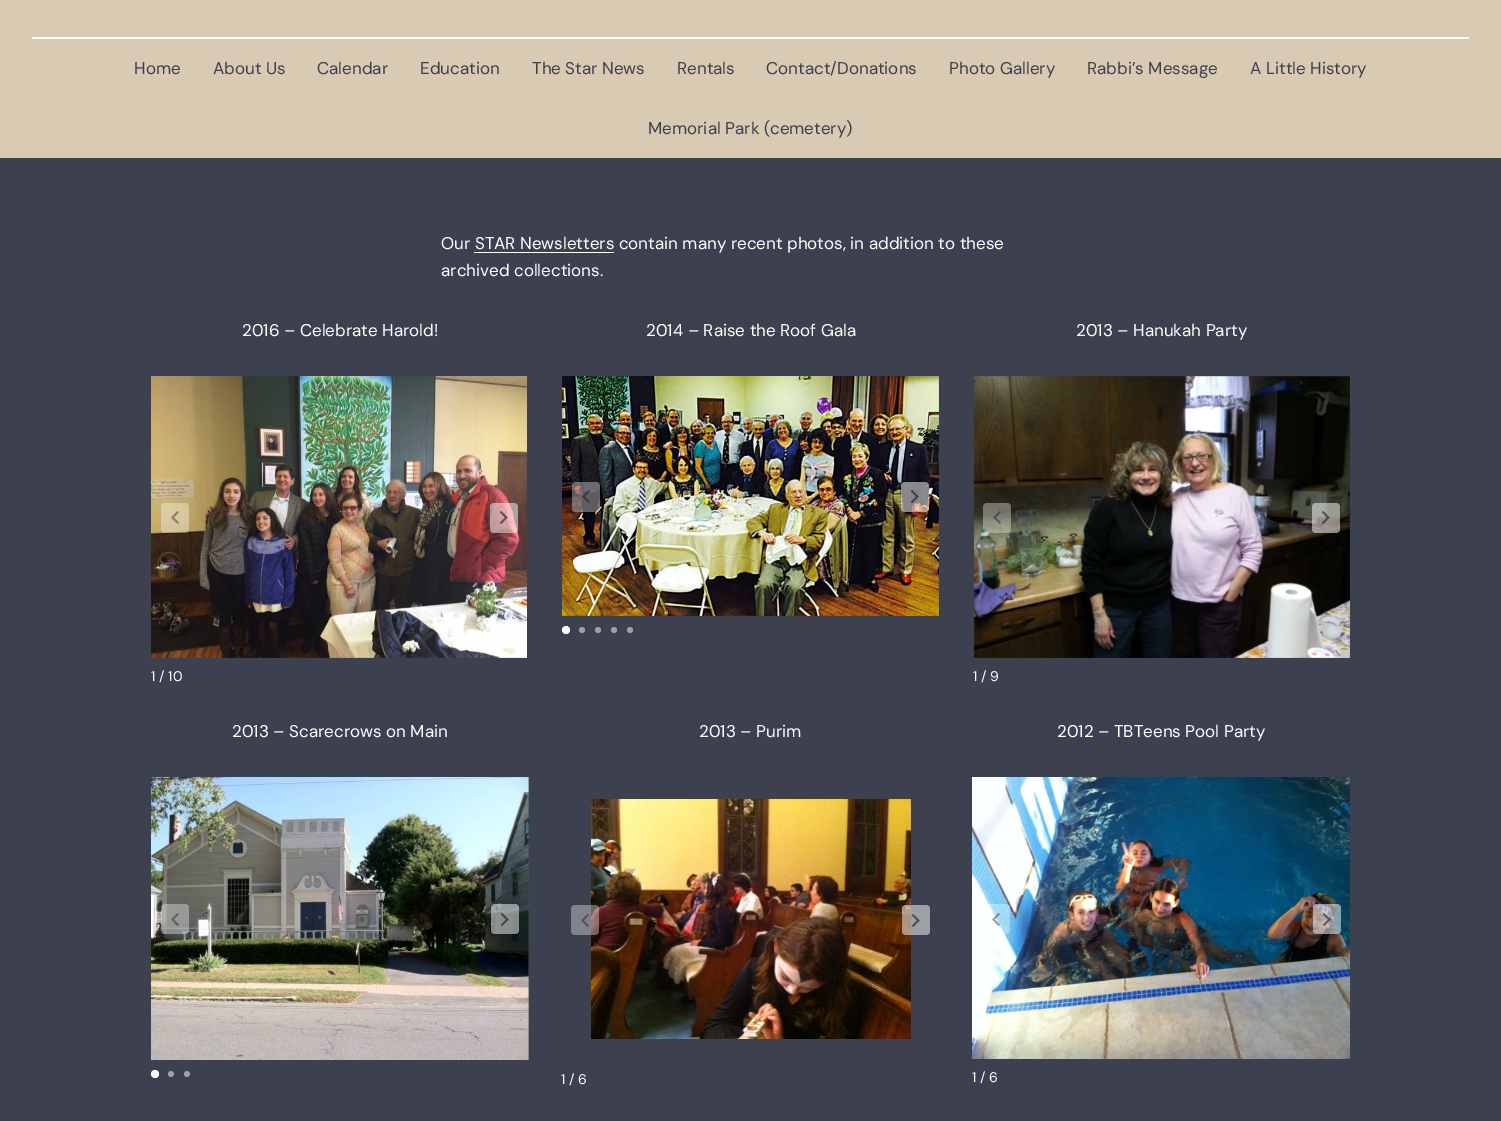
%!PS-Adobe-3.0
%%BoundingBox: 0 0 1501 1121
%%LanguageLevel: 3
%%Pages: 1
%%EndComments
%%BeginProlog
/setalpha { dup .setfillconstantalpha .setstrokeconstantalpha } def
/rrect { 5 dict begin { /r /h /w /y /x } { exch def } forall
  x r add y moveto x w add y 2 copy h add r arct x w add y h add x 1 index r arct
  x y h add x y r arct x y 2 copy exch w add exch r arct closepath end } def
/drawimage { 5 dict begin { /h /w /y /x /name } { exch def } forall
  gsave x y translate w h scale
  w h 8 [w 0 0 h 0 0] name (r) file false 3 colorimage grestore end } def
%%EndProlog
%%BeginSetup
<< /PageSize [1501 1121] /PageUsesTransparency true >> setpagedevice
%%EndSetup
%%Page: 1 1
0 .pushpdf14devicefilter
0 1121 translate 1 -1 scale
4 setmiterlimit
0.239 0.255 0.31 setrgbcolor
0 0 1501 1121 rectfill
0.851 0.792 0.702 setrgbcolor
0 0 1501 158 rectfill
1 setgray
32 37 1437 2 rectfill
474 252 140 1 rectfill
(images/1.raw) 562 376 377 240 drawimage
0.35 setalpha
572 482 28 30 4 rrect fill
1 setalpha
(images/2.raw) 582 490 8 13 drawimage
0.5 setalpha
901 482 28 30 4 rrect fill
1 setalpha
(images/3.raw) 910 490 9 13 drawimage
newpath 566 630 4 0 360 arc closepath fill
0.62 0.627 0.655 setrgbcolor
newpath 582 630 3 0 360 arc closepath fill
newpath 598 630 3 0 360 arc closepath fill
newpath 614 630 3 0 360 arc closepath fill
newpath 630 630 3 0 360 arc closepath fill
(images/4.raw) 151 376 376 282 drawimage
0.35 setalpha
1 setgray
161 503 28 30 4 rrect fill
1 setalpha
(images/5.raw) 171 511 8 13 drawimage
0.5 setalpha
490 503 28 30 4 rrect fill
1 setalpha
(images/6.raw) 499 511 9 13 drawimage
(images/7.raw) 973 376 377 282 drawimage
0.35 setalpha
983 503 28 30 4 rrect fill
1 setalpha
(images/8.raw) 993 511 8 13 drawimage
0.5 setalpha
1312 503 28 30 4 rrect fill
1 setalpha
(images/9.raw) 1321 511 9 13 drawimage
(images/10.raw) 151 777 378 283 drawimage
0.35 setalpha
161 904 28 30 4 rrect fill
1 setalpha
(images/11.raw) 171 913 8 13 drawimage
0.5 setalpha
491 904 28 30 4 rrect fill
1 setalpha
(images/12.raw) 500 913 9 13 drawimage
newpath 155 1074 4 0 360 arc closepath fill
0.62 0.627 0.655 setrgbcolor
newpath 171 1074 3 0 360 arc closepath fill
newpath 187 1074 3 0 360 arc closepath fill
(images/14.raw) 591 799 320 240 drawimage
0.35 setalpha
1 setgray
571 905 28 30 4 rrect fill
1 setalpha
(images/13.raw) 581 914 8 13 drawimage
0.5 setalpha
902 905 28 30 4 rrect fill
1 setalpha
(images/15.raw) 911 914 9 13 drawimage
(images/16.raw) 972 777 379 282 drawimage
0.35 setalpha
982 904 28 30 4 rrect fill
1 setalpha
(images/17.raw) 992 913 8 13 drawimage
0.5 setalpha
1313 904 28 30 4 rrect fill
1 setalpha
(images/18.raw) 1322 913 9 13 drawimage
/DMSans-Regular [17 0 0 -17 0 0] selectfont
0.235 0.247 0.302 setrgbcolor
134 74 moveto (Home) show
213 74 moveto (About Us) show
317 74 moveto (Calendar) show
420 74 moveto (Education) show
532 74 moveto (The Star News) show
677 74 moveto (Rentals) show
766 74 moveto (Contact/Donations) show
949 74 moveto (Photo Gallery) show
1087 74 moveto (Rabbi’s Message) show
1250 74 moveto (A Little History) show
648 134 moveto (Memorial Park \(cemetery\)) show
1 setgray
441 249 moveto (Our STAR Newsletters contain many recent photos, in addition to these) show
441 276 moveto (archived collections.) show
242 336 moveto (2016 – Celebrate Harold!) show
646 336 moveto (2014 – Raise the Roof Gala) show
1076 336 moveto (2013 – Hanukah Party) show
/DMSans-Regular [14 0 0 -14 0 0] selectfont
151 681 moveto (1 / 10) show
973 681 moveto (1 / 9) show
/DMSans-Regular [17 0 0 -17 0 0] selectfont
232 737 moveto (2013 – Scarecrows on Main) show
699 737 moveto (2013 – Purim) show
1057 737 moveto (2012 – TBTeens Pool Party) show
/DMSans-Regular [14 0 0 -14 0 0] selectfont
561 1084 moveto (1 / 6) show
972 1082 moveto (1 / 6) show
.poppdf14devicefilter showpage
%%EOF
